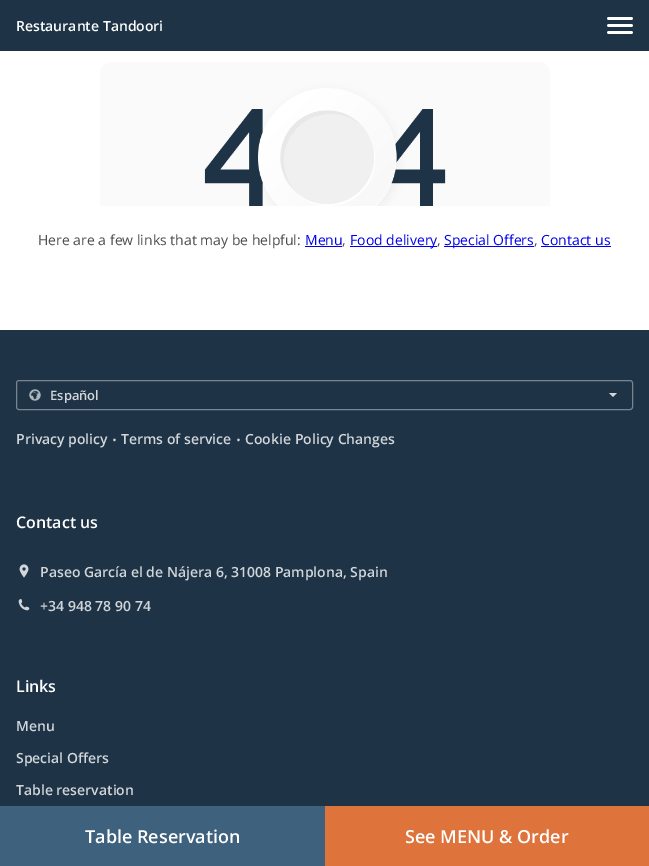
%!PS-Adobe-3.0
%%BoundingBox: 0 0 649 866
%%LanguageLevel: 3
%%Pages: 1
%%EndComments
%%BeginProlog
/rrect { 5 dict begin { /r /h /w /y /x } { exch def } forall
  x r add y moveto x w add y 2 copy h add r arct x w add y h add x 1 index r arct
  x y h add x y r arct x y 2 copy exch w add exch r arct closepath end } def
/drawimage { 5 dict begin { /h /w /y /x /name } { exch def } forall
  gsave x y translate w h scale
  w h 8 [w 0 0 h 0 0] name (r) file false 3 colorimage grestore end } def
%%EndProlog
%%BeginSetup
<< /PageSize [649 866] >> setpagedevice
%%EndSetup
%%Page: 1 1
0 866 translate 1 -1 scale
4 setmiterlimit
1 setgray
0 0 649 866 rectfill
0.118 0.204 0.275 setrgbcolor
0 0 649 51 rectfill
(images/1.raw) 607 17 26 17 drawimage
(images/2.raw) 100 62 450 144 drawimage
0 0 0.933 setrgbcolor
305 246 37 1 rectfill
350 246 87 1 rectfill
444 246 90 1 rectfill
541 246 70 1 rectfill
0.118 0.204 0.275 setrgbcolor
0 330 649 476 rectfill
(images/3.raw) 29 389 12 12 drawimage
0.471 0.522 0.565 setrgbcolor
16.5 380.5 616 29 2.5 rrect stroke
0.824 0.839 0.855 setrgbcolor
newpath 609 393 moveto 617 393 lineto 613 397 lineto closepath fill
(images/4.raw) 19 564 10 14 drawimage
(images/5.raw) 18 599 12 12 drawimage
0.243 0.38 0.49 setrgbcolor
0 806 325 60 rectfill
0.875 0.451 0.235 setrgbcolor
325 806 324 60 rectfill
/OpenSans-SemiBold [14 0 0 -14 0 0] selectfont
1 setgray
16 31 moveto (Restaurante Tandoori) show
/OpenSans-Regular [14 0 0 -14 0 0] selectfont
0.302 setgray
38 245 moveto (Here are a few links that may be helpful:) show
0 0 0.933 setrgbcolor
305 245 moveto (Menu) show
0.302 setgray
342 245 moveto (,) show
0 0 0.933 setrgbcolor
350 245 moveto (Food delivery) show
0.302 setgray
437 245 moveto (,) show
0 0 0.933 setrgbcolor
444 245 moveto (Special Offers) show
0.302 setgray
534 245 moveto (,) show
0 0 0.933 setrgbcolor
541 245 moveto (Contact us) show
/OpenSans-SemiBold [13 0 0 -13 0 0] selectfont
0.824 0.839 0.855 setrgbcolor
50 400 moveto (Español) show
/OpenSans-SemiBold [14 0 0 -14 0 0] selectfont
16 444 moveto (Privacy policy) show
/OpenSans-SemiBold [18 0 0 -18 0 0] selectfont
112 441 moveto (.) show
/OpenSans-SemiBold [14 0 0 -14 0 0] selectfont
121 444 moveto (Terms of service) show
/OpenSans-SemiBold [18 0 0 -18 0 0] selectfont
236 441 moveto (.) show
/OpenSans-SemiBold [14 0 0 -14 0 0] selectfont
245 444 moveto (Cookie Policy Changes) show
/OpenSans-SemiBold [16 0 0 -16 0 0] selectfont
1 setgray
16 528 moveto (Contact us) show
/OpenSans-SemiBold [14 0 0 -14 0 0] selectfont
0.824 0.839 0.855 setrgbcolor
40 577 moveto (Paseo García el de Nájera 6, 31008 Pamplona, Spain) show
40 611 moveto (+34 948 78 90 74) show
/OpenSans-SemiBold [16 0 0 -16 0 0] selectfont
1 setgray
16 692 moveto (Links) show
/OpenSans-SemiBold [14 0 0 -14 0 0] selectfont
0.824 0.839 0.855 setrgbcolor
16 731 moveto (Menu) show
16 763 moveto (Special Offers) show
16 795 moveto (Table reservation) show
/OpenSans-SemiBold [18 0 0 -18 0 0] selectfont
1 setgray
85 843 moveto (Table Reservation) show
405 843 moveto (See MENU & Order) show
showpage
%%EOF
